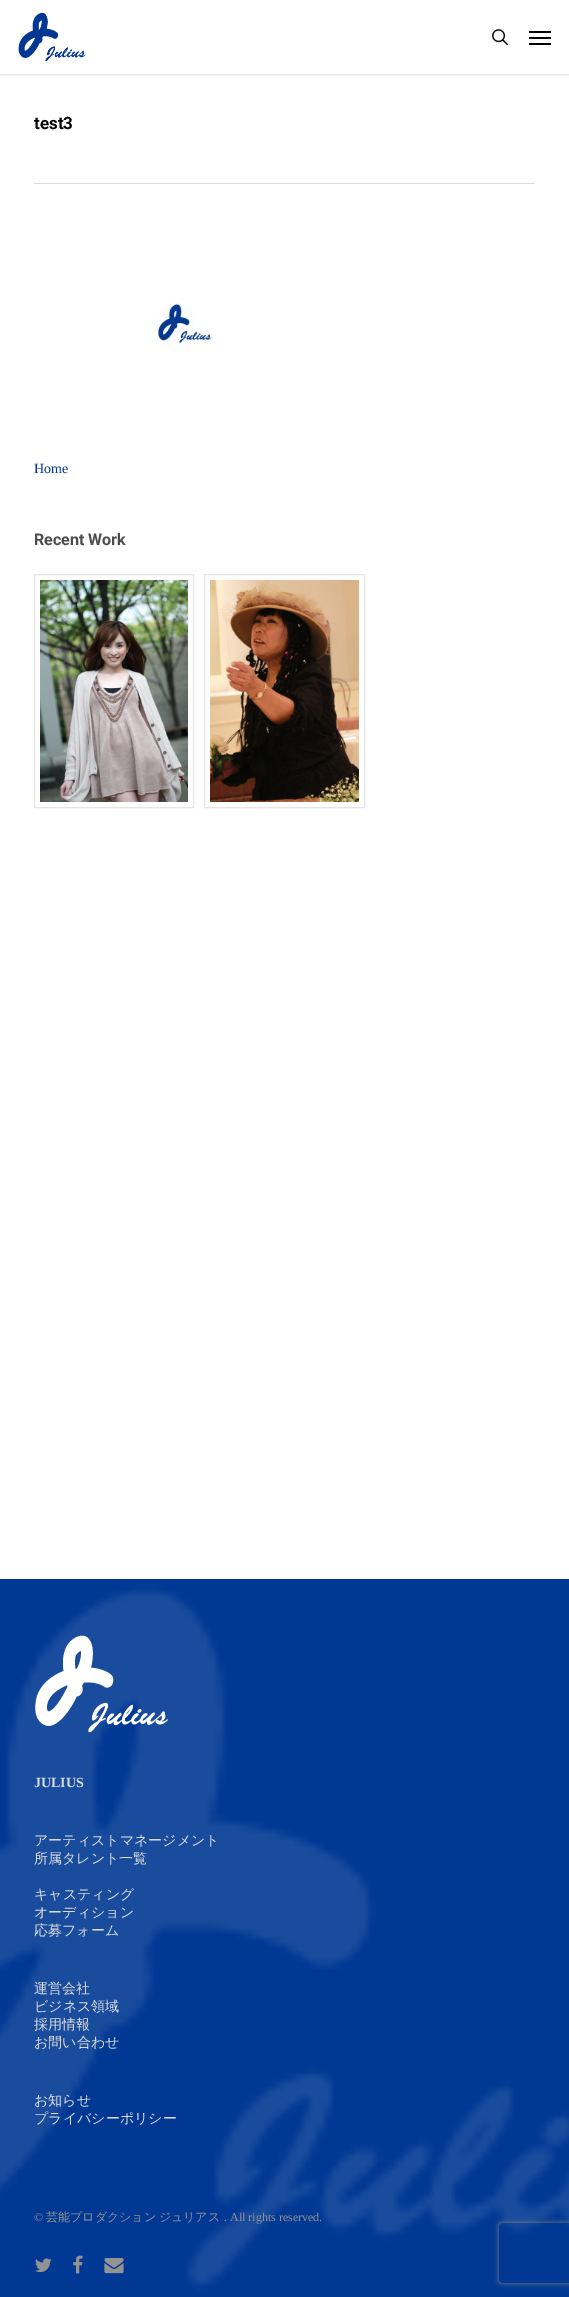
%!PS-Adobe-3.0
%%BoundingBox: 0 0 569 2297
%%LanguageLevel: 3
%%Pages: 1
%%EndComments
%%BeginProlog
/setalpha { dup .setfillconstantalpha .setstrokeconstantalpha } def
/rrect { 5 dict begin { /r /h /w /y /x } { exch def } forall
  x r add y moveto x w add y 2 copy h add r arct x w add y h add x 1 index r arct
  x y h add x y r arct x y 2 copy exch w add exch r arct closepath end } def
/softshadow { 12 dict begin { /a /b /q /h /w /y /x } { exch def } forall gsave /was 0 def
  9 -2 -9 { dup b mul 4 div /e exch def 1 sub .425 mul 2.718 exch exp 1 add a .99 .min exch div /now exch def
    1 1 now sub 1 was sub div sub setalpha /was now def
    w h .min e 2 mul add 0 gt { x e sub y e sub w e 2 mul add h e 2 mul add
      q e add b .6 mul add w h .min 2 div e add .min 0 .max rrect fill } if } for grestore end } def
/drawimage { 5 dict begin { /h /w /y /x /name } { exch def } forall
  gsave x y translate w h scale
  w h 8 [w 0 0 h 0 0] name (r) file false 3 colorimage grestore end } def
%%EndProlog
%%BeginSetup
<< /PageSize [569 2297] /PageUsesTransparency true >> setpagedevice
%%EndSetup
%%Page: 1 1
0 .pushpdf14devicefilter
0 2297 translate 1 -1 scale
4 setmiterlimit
1 setgray
0 0 569 2297 rectfill
gsave
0 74 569 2 rectclip
0 setgray
0 0 569 74 0 1.5 0.22 softshadow
grestore
(images/1.raw) 18 12 68 50 drawimage
(images/2.raw) 492 29 16 16 drawimage
0 setgray
529 31 22 2 rectfill
529 43 22 2 rectfill
529 37 22 2 rectfill
0.867 setgray
34 183 501 1 rectfill
(images/3.raw) 146 302 66 49 drawimage
0.898 setgray
34.5 574.5 159 233 rectstroke
(images/4.raw) 40 580 148 222 drawimage
204.5 574.5 160 233 rectstroke
(images/5.raw) 210 580 149 222 drawimage
0 0.22 0.576 setrgbcolor
0 1579 569 718 rectfill
(images/6.raw) 0 1583 569 710 drawimage
(images/7.raw) 35 1635 133 98 drawimage
(images/8.raw) 35 2258 17 15 drawimage
(images/9.raw) 73 2255 10 19 drawimage
(images/10.raw) 104 2258 20 16 drawimage
gsave
newpath 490 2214 moveto 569 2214 lineto 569 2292 lineto 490 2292 lineto closepath 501 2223 moveto 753 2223 lineto 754 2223 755 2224 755 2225 curveto 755 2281 lineto 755 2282 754 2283 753 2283 curveto 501 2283 lineto 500 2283 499 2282 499 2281 curveto 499 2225 lineto 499 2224 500 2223 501 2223 curveto closepath eoclip newpath
0.502 setgray
499 2223 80 60 2 2.5 1 softshadow
grestore
/Roboto-Bold [17 0 0 -17 0 0] selectfont
0 setgray
34 129 moveto (test3) show
/LiberationSerif-Regular [14 0 0 -14 0 0] selectfont
0 0.22 0.576 setrgbcolor
34 473 moveto (Home) show
/Roboto-Bold [16 0 0 -16 0 0] selectfont
0.302 setgray
34 545 moveto (Recent Work) show
/LiberationSerif-Bold [14 0 0 -14 0 0] selectfont
0.867 setgray
34 1787 moveto (JULIUS) show
/WenQuanYiZenHei-Medium [14 0 0 -14 0 0] selectfont
34 1845 moveto (アーティストマネージメント) show
34 1863 moveto (所属タレント一覧) show
34 1899 moveto (キャスティング) show
34 1917 moveto (オーディション) show
34 1935 moveto (応募フォーム) show
34 1993 moveto (運営会社) show
34 2011 moveto (ビジネス領域) show
34 2029 moveto (採用情報) show
34 2047 moveto (お問い合わせ) show
34 2105 moveto (お知らせ) show
34 2123 moveto (プライバシーポリシー) show
/LiberationSerif-Regular [12 0 0 -12 0 0] selectfont
0.576 setgray
34 2221 moveto (©) show
/WenQuanYiZenHei-Medium [12 0 0 -12 0 0] selectfont
46 2221 moveto -1 0 32 (芸能プロダクション ジュリアス) widthshow
/LiberationSerif-Regular [12 0 0 -12 0 0] selectfont
224 2221 moveto (. All rights reserved.) show
.poppdf14devicefilter showpage
%%EOF
